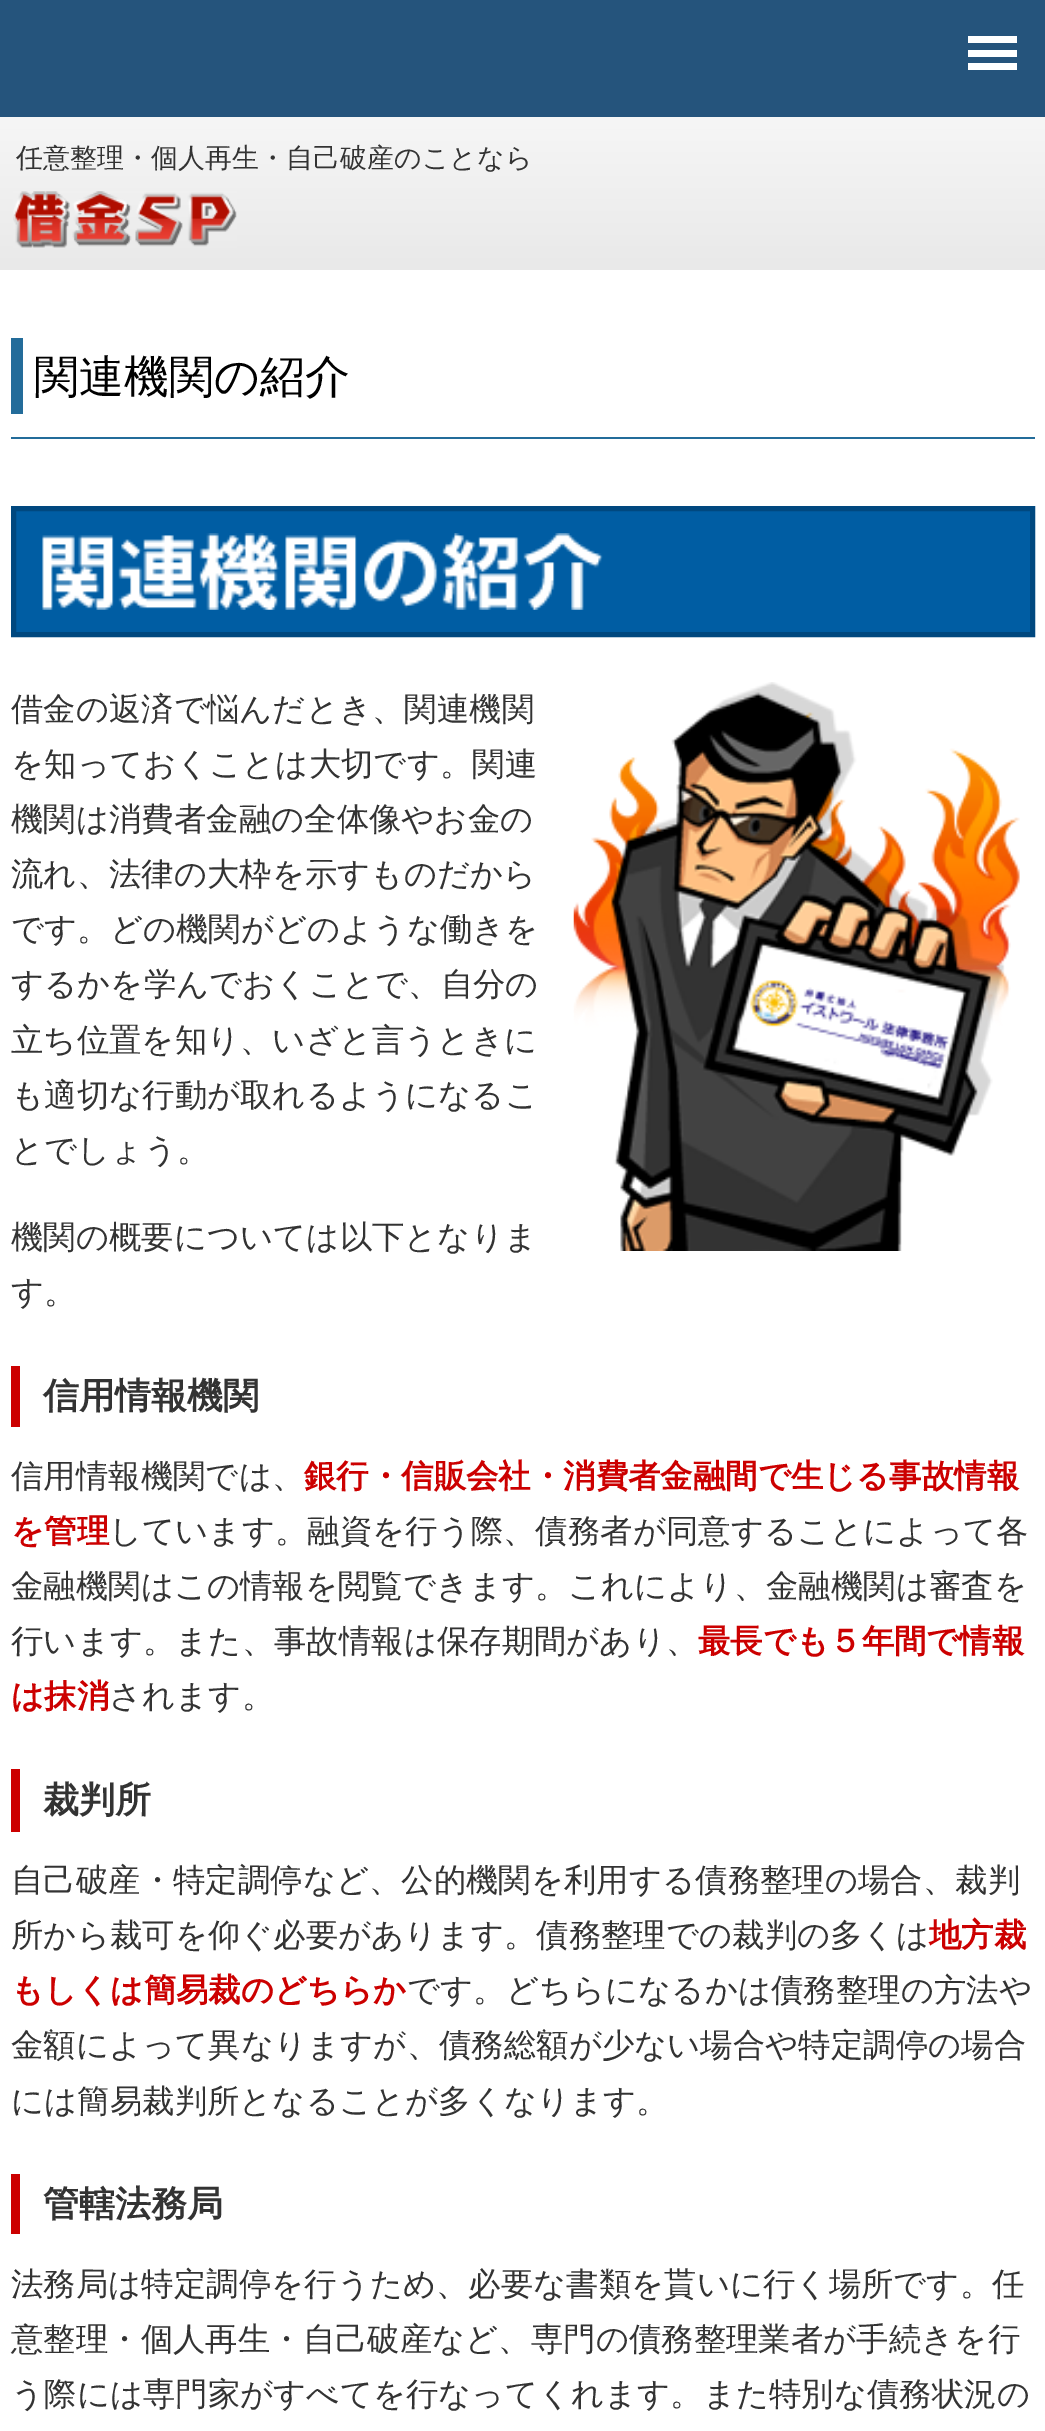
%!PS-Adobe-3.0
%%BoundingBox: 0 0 1045 2431
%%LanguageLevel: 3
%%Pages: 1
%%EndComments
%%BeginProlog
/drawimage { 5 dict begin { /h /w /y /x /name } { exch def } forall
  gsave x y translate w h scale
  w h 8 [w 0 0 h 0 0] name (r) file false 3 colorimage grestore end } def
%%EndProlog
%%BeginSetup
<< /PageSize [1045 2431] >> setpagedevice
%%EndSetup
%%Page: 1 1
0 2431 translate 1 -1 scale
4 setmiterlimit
1 setgray
0 0 1045 2431 rectfill
0.145 0.329 0.486 setrgbcolor
0 0 1045 117 rectfill
1 setgray
968 36 49 7 rectfill
968 50 49 7 rectfill
968 63 49 7 rectfill
gsave newpath 0 117 moveto 1045 117 lineto 1045 270 lineto 0 270 lineto closepath clip newpath
<< /ShadingType 2 /ColorSpace /DeviceRGB /Coords [523 11 523 270] /Extend [true true] /Function << /FunctionType 2 /Domain [0 1] /C0 [1 1 1] /C1 [0.914 0.914 0.914] /N 1 >> >> shfill grestore
(images/1.raw) 13 191 224 57 drawimage
0.137 0.424 0.604 setrgbcolor
11 437 1024 2 rectfill
11 338 12 76 rectfill
0 0.365 0.639 setrgbcolor
newpath 13.5 508.5 moveto 1032.5 508.5 lineto 1032.5 634.5 lineto 13.5 634.5 lineto closepath gsave fill grestore
0 0.282 0.498 setrgbcolor
5 setlinewidth
stroke
(images/2.raw) 42 533 561 77 drawimage
(images/3.raw) 573 682 447 569 drawimage
0.8 0 0 setrgbcolor
11 1366 9 61 rectfill
11 1769 9 63 rectfill
11 2174 9 60 rectfill
/WenQuanYiZenHei-Medium [27 0 0 -27 0 0] selectfont
0.2 setgray
16 167 moveto (任意整理・個人再生・自己破産のことなら) show
/WenQuanYiZenHei-Medium [45 0 0 -45 0 0] selectfont
0 setgray
34 392 moveto (関連機関の紹介) show
/WenQuanYiZenHei-Medium [32.4 0 0 -32.4 0 0] selectfont
0.2 setgray
11 720 moveto (借金の返済で悩んだとき、関連機関) show
11 775 moveto (を知っておくことは大切です。関連) show
11 830 moveto (機関は消費者金融の全体像やお金の) show
11 885 moveto (流れ、法律の大枠を示すものだから) show
11 940 moveto (です。どの機関がどのような働きを) show
11 995 moveto (するかを学んでおくことで、自分の) show
11 1051 moveto (立ち位置を知り、いざと言うときに) show
11 1106 moveto (も適切な行動が取れるようになるこ) show
11 1161 moveto (とでしょう。) show
11 1248 moveto (機関の概要については以下となりま) show
11 1303 moveto (す。) show
/WenQuanYiZenHei-Bold [36 0 0 -36 0 0] selectfont
43 1408 moveto (信用情報機関) show
/WenQuanYiZenHei-Medium [32.4 0 0 -32.4 0 0] selectfont
11 1487 moveto (信用情報機関では、) show
/WenQuanYiZenHei-Bold [32.4 0 0 -32.4 0 0] selectfont
0.8 0 0 setrgbcolor
304 1487 moveto (銀行・信販会社・消費者金融間で生じる事故情報) show
11 1542 moveto (を管理) show
/WenQuanYiZenHei-Medium [32.4 0 0 -32.4 0 0] selectfont
0.2 setgray
109 1542 moveto (しています。融資を行う際、債務者が同意することによって各) show
11 1597 moveto (金融機関はこの情報を閲覧できます。これにより、金融機関は審査を) show
11 1652 moveto (行います。また、事故情報は保存期間があり、) show
/WenQuanYiZenHei-Bold [32.4 0 0 -32.4 0 0] selectfont
0.8 0 0 setrgbcolor
698 1652 moveto (最長でも５年間で情報) show
11 1707 moveto (は抹消) show
/WenQuanYiZenHei-Medium [32.4 0 0 -32.4 0 0] selectfont
0.2 setgray
109 1707 moveto (されます。) show
/WenQuanYiZenHei-Bold [36 0 0 -36 0 0] selectfont
43 1812 moveto (裁判所) show
/WenQuanYiZenHei-Medium [32.4 0 0 -32.4 0 0] selectfont
11 1891 moveto (自己破産・特定調停など、公的機関を利用する債務整理の場合、裁判) show
11 1946 moveto (所から裁可を仰ぐ必要があります。債務整理での裁判の多くは) show
/WenQuanYiZenHei-Bold [32.4 0 0 -32.4 0 0] selectfont
0.8 0 0 setrgbcolor
929 1946 moveto (地方裁) show
11 2001 moveto (もしくは簡易裁のどちらか) show
/WenQuanYiZenHei-Medium [32.4 0 0 -32.4 0 0] selectfont
0.2 setgray
407 2001 moveto (です。どちらになるかは債務整理の方法や) show
11 2056 moveto (金額によって異なりますが、債務総額が少ない場合や特定調停の場合) show
11 2112 moveto (には簡易裁判所となることが多くなります。) show
/WenQuanYiZenHei-Bold [36 0 0 -36 0 0] selectfont
43 2216 moveto (管轄法務局) show
/WenQuanYiZenHei-Medium [32.4 0 0 -32.4 0 0] selectfont
11 2295 moveto (法務局は特定調停を行うため、必要な書類を貰いに行く場所です。任) show
11 2350 moveto (意整理・個人再生・自己破産など、専門の債務整理業者が手続きを行) show
11 2405 moveto (う際には専門家がすべてを行なってくれます。また特別な債務状況の) show
showpage
%%EOF
